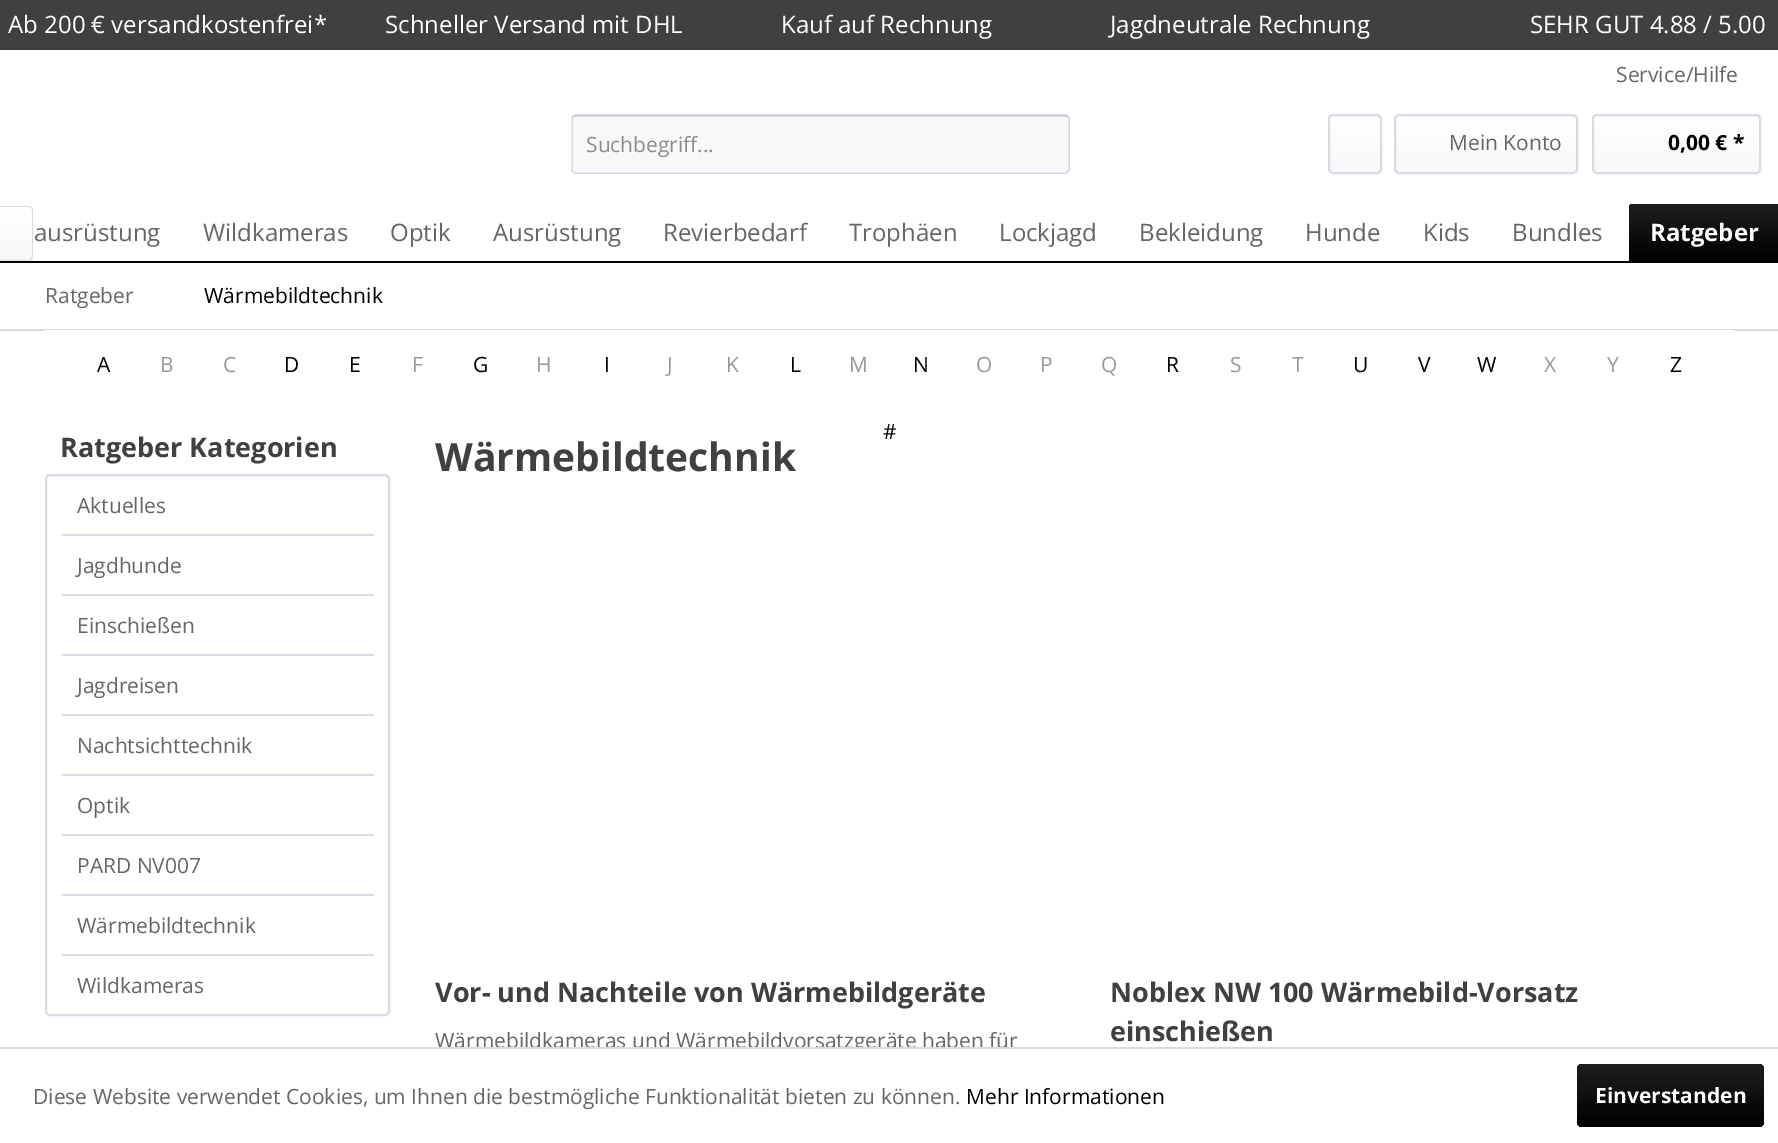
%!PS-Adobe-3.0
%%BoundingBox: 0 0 1778 1143
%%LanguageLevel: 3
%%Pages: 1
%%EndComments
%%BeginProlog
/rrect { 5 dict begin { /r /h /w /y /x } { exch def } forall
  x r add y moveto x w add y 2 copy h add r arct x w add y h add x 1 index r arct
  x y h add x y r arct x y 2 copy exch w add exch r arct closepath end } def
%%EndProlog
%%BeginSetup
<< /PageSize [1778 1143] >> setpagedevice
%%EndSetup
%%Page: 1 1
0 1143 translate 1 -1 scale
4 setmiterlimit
1 setgray
0 0 1778 1143 rectfill
0.251 setgray
0 0 1778 50 rectfill
0.973 0.973 0.98 setrgbcolor
572 114 498 60 5 rrect fill
0.855 0.855 0.898 setrgbcolor
newpath 576 117 moveto 1065 117 lineto 1067 117 1068 118 1068 120 curveto 1068 118 1067 116 1065 116 curveto 576 116 lineto 574 116 573 118 573 120 curveto 573 118 574 117 576 117 curveto closepath fill
0.796 0.796 0.859 setrgbcolor
1.5 setlinewidth
newpath 573.5 116 moveto 576 115 lineto 1065 115 lineto 1067.5 116 lineto stroke
0.855 0.855 0.898 setrgbcolor
newpath 1067.5 116 moveto 1068.5 116.5 1069 117.5 1069 118.5 curveto 1069 169.5 lineto 1069 170.5 1068.5 171.5 1067.5 172 curveto 1067 173 1066 173 1065 173 curveto 576 173 lineto 575 173 574 173 573.5 172 curveto 572.5 171.5 572 170.5 572 169.5 curveto 572 118.5 lineto 572 117.5 572.5 116.5 573.5 116 curveto stroke
gsave 1329 116 51 57 3 rrect clip newpath
<< /ShadingType 2 /ColorSpace /DeviceRGB /Coords [1355 116 1355 173] /Extend [true true] /Function << /FunctionType 2 /Domain [0 1] /C0 [1 1 1] /C1 [0.973 0.973 0.98] /N 1 >> >> shfill grestore
2 setlinewidth
1329 115 52 58 4 rrect stroke
gsave 1395 116 182 57 3 rrect clip newpath
<< /ShadingType 2 /ColorSpace /DeviceRGB /Coords [1486 116 1486 173] /Extend [true true] /Function << /FunctionType 2 /Domain [0 1] /C0 [1 1 1] /C1 [0.973 0.973 0.98] /N 1 >> >> shfill grestore
1395 115 182 58 4 rrect stroke
gsave 1593 116 167 57 3 rrect clip newpath
<< /ShadingType 2 /ColorSpace /DeviceRGB /Coords [1676 116 1676 173] /Extend [true true] /Function << /FunctionType 2 /Domain [0 1] /C0 [1 1 1] /C1 [0.973 0.973 0.98] /N 1 >> >> shfill grestore
1593 115 167 58 4 rrect stroke
0 setgray
0 261 1778 2 rectfill
gsave newpath 0 207 moveto 29 207 lineto 30.5 207 32 208.5 32 210 curveto 32 257 lineto 32 258.5 30.5 260 29 260 curveto 0 260 lineto closepath clip newpath
<< /ShadingType 2 /ColorSpace /DeviceRGB /Coords [16 207 16 260] /Extend [true true] /Function << /FunctionType 2 /Domain [0 1] /C0 [1 1 1] /C1 [0.973 0.973 0.98] /N 1 >> >> shfill grestore
0.855 0.855 0.898 setrgbcolor
newpath 0 206 moveto 28 206 lineto 31 206 33 208 33 210 curveto 33 256 lineto 33 259 31 261 28 261 curveto 0 261 lineto closepath 0 207 moveto 28 207 lineto 30 207 32 208 32 210 curveto 32 256 lineto 32 258 30 260 28 260 curveto 0 260 lineto closepath eofill
gsave newpath 1634 204 moveto 1774 204 lineto 1777 204 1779 206 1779 209 curveto 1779 261 lineto 1629 261 lineto 1629 209 lineto 1629 206 1631 204 1634 204 curveto closepath clip newpath
<< /ShadingType 2 /ColorSpace /DeviceRGB /Coords [1704 204 1704 261] /Extend [true true] /Function << /FunctionType 2 /Domain [0 1] /C0 [0.125 0.114 0.114] /C1 [0 0 0] /N 1 >> >> shfill grestore
0 329 1778 2 rectfill
1 setgray
45 330 1689 1 rectfill
0.855 0.855 0.898 setrgbcolor
46 475 343 540 4 rrect stroke
62 534 312 2 rectfill
62 594 312 2 rectfill
62 654 312 2 rectfill
62 714 312 2 rectfill
62 774 312 2 rectfill
62 834 312 2 rectfill
62 894 312 2 rectfill
62 954 312 2 rectfill
gsave 1577 1064 187 63 5 rrect clip newpath
<< /ShadingType 2 /ColorSpace /DeviceRGB /Coords [1670 1064 1670 1127] /Extend [true true] /Function << /FunctionType 2 /Domain [0 1] /C0 [0.125 0.114 0.114] /C1 [0 0 0] /N 1 >> >> shfill grestore
/OpenSans-Regular [24 0 0 -24 0 0] selectfont
1 setgray
8 33 moveto (Ab 200 € versandkostenfrei*) show
385 33 moveto (Schneller Versand mit DHL) show
781 33 moveto (Kauf auf Rechnung) show
1110 33 moveto (Jagdneutrale Rechnung) show
1530 33 moveto (SEHR GUT 4.88 / 5.00) show
/OpenSans-Regular [21 0 0 -21 0 0] selectfont
0.4 setgray
1616 82 moveto (Service/Hilfe) show
0.549 setgray
586 152 moveto (Suchbegriff...) show
0.4 setgray
1449 150 moveto (Mein Konto) show
/OpenSans-Bold [21 0 0 -21 0 0] selectfont
0 setgray
1668 150 moveto (0,00 € *) show
/OpenSans-Regular [24 0 0 -24 0 0] selectfont
0.4 setgray
34 241 moveto (ausrüstung) show
203 241 moveto (Wildkameras) show
390 241 moveto (Optik) show
493 241 moveto (Ausrüstung) show
663 241 moveto (Revierbedarf) show
849 241 moveto (Trophäen) show
999 241 moveto (Lockjagd) show
1139 241 moveto (Bekleidung) show
1305 241 moveto (Hunde) show
1423 241 moveto (Kids) show
1512 241 moveto (Bundles) show
/OpenSans-Bold [24 0 0 -24 0 0] selectfont
1 setgray
1650 241 moveto (Ratgeber) show
/OpenSans-Regular [21 0 0 -21 0 0] selectfont
0.4 setgray
45 303 moveto (Ratgeber) show
0 setgray
204 303 moveto (Wärmebildtechnik) show
97 372 moveto (A) show
0.6 setgray
160 372 moveto (B) show
223 372 moveto (C) show
0 setgray
284 372 moveto (D) show
349 372 moveto (E) show
0.6 setgray
412 372 moveto (F) show
0 setgray
473 372 moveto (G) show
0.6 setgray
536 372 moveto (H) show
0 setgray
604 372 moveto (I) show
0.6 setgray
667 372 moveto (J) show
726 372 moveto (K) show
0 setgray
790 372 moveto (L) show
0.6 setgray
849 372 moveto (M) show
0 setgray
913 372 moveto (N) show
0.6 setgray
976 372 moveto (O) show
1040 372 moveto (P) show
1101 372 moveto (Q) show
0 setgray
1166 372 moveto (R) show
0.6 setgray
1230 372 moveto (S) show
1292 372 moveto (T) show
0 setgray
1353 372 moveto (U) show
1418 372 moveto (V) show
1477 372 moveto (W) show
0.6 setgray
1544 372 moveto (X) show
1607 372 moveto (Y) show
0 setgray
1670 372 moveto (Z) show
883 439 moveto (#) show
/OpenSans-Bold [27 0 0 -27 0 0] selectfont
0.251 setgray
60 457 moveto (Ratgeber Kategorien) show
/OpenSans-Regular [21 0 0 -21 0 0] selectfont
0.4 setgray
77 513 moveto (Aktuelles) show
77 573 moveto (Jagdhunde) show
77 633 moveto (Einschießen) show
77 693 moveto (Jagdreisen) show
77 753 moveto (Nachtsichttechnik) show
77 813 moveto (Optik) show
77 873 moveto (PARD NV007) show
77 933 moveto (Wärmebildtechnik) show
77 993 moveto (Wildkameras) show
/OpenSans-Bold [39 0 0 -39 0 0] selectfont
0.251 setgray
435 471 moveto (Wärmebildtechnik) show
/OpenSans-Bold [27 0 0 -27 0 0] selectfont
435 1002 moveto (Vor- und Nachteile von Wärmebildgeräte) show
/OpenSans-Regular [21 0 0 -21 0 0] selectfont
0.4 setgray
435 1048 moveto (Wärmebildkameras und Wärmebildvorsatzgeräte haben für) show
/OpenSans-Bold [27 0 0 -27 0 0] selectfont
0.251 setgray
1110 1002 moveto (Noblex NW 100 Wärmebild-Vorsatz) show
1110 1041 moveto (einschießen) show
1 setgray
854 1049 11 4 rectfill
0.855 0.855 0.898 setrgbcolor
0 1047 1778 2 rectfill
/OpenSans-Regular [21 0 0 -21 0 0] selectfont
0.4 setgray
33 1104 moveto (Diese Website verwendet Cookies, um Ihnen die bestmögliche Funktionalität bieten zu können.) show
0 setgray
966 1104 moveto (Mehr Informationen) show
/OpenSans-Bold [21 0 0 -21 0 0] selectfont
1 setgray
1595 1103 moveto (Einverstanden) show
showpage
%%EOF
